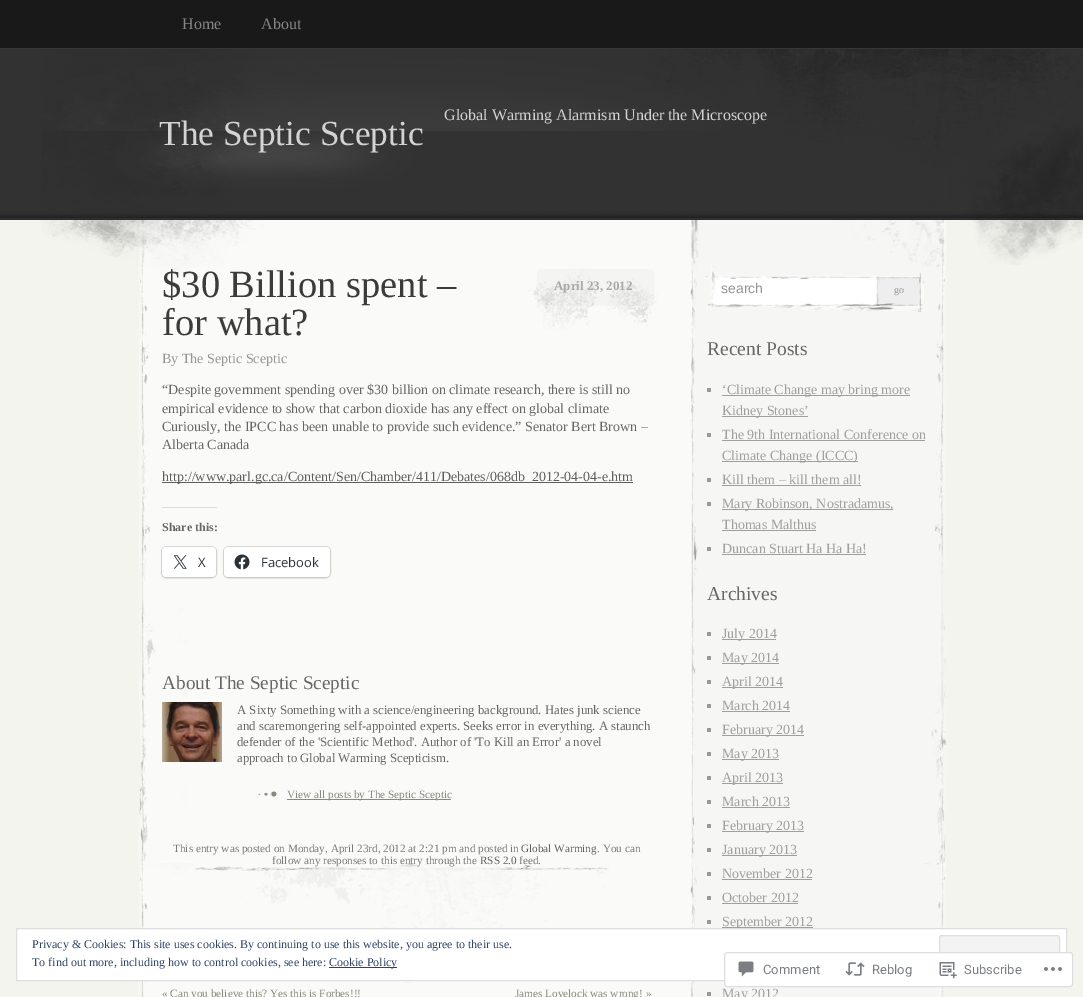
%!PS-Adobe-3.0
%%BoundingBox: 0 0 1083 997
%%LanguageLevel: 3
%%Pages: 1
%%EndComments
%%BeginProlog
/setalpha { dup .setfillconstantalpha .setstrokeconstantalpha } def
/rrect { 5 dict begin { /r /h /w /y /x } { exch def } forall
  x r add y moveto x w add y 2 copy h add r arct x w add y h add x 1 index r arct
  x y h add x y r arct x y 2 copy exch w add exch r arct closepath end } def
/softshadow { 12 dict begin { /a /b /q /h /w /y /x } { exch def } forall gsave /was 0 def
  9 -2 -9 { dup b mul 4 div /e exch def 1 sub .425 mul 2.718 exch exp 1 add a .99 .min exch div /now exch def
    1 1 now sub 1 was sub div sub setalpha /was now def
    w h .min e 2 mul add 0 gt { x e sub y e sub w e 2 mul add h e 2 mul add
      q e add b .6 mul add w h .min 2 div e add .min 0 .max rrect fill } if } for grestore end } def
/drawimage { 5 dict begin { /h /w /y /x /name } { exch def } forall
  gsave x y translate w h scale
  w h 8 [w 0 0 h 0 0] name (r) file false 3 colorimage grestore end } def
%%EndProlog
%%BeginSetup
<< /PageSize [1083 997] /PageUsesTransparency true >> setpagedevice
%%EndSetup
%%Page: 1 1
0 .pushpdf14devicefilter
0 997 translate 1 -1 scale
4 setmiterlimit
0.953 0.957 0.933 setrgbcolor
0 0 1083 997 rectfill
0.098 setgray
0 0 1083 48 rectfill
0.216 setgray
0 48 1083 1 rectfill
(images/1.raw) 0 49 1083 171 drawimage
(images/2.raw) 41 49 1042 216 drawimage
(images/3.raw) 138 265 809 732 drawimage
(images/4.raw) 528 269 129 62 drawimage
0.373 setgray
162 482 471 1 rectfill
0.863 0.863 0.871 setrgbcolor
162 507 55 1 rectfill
0.863 0.867 0.859 setrgbcolor
161.5 546.5 55 31 4.5 rrect stroke
0 setgray
162 548 54 30 4 1 0.12 softshadow
1 setgray
162 547 54 30 4 rrect fill
(images/5.raw) 173 555 14 14 drawimage
0.863 0.867 0.859 setrgbcolor
223.5 546.5 107 31 4.5 rrect stroke
0 setgray
224 548 106 30 4 1 0.12 softshadow
1 setgray
224 547 106 30 4 rrect fill
(images/6.raw) 234 554 16 16 drawimage
(images/7.raw) 162 702 60 60 drawimage
(images/8.raw) 258 791 19 6 drawimage
0.533 0.537 0.482 setrgbcolor
287 799 164 1 rectfill
(images/9.raw) 195 863 414 120 drawimage
(images/10.raw) 704 265 220 47 drawimage
1 setgray
732 279 127 1 rectfill
0.6 setgray
707 388 4 4 rectfill
0.624 setgray
722 395 188 1 rectfill
722 416 86 1 rectfill
0.6 setgray
707 433 4 4 rectfill
0.624 setgray
722 440 203 1 rectfill
722 461 136 1 rectfill
0.6 setgray
707 478 4 4 rectfill
0.624 setgray
722 485 139 1 rectfill
0.6 setgray
707 502 4 4 rectfill
0.624 setgray
722 509 171 1 rectfill
722 530 94 1 rectfill
0.6 setgray
707 547 4 4 rectfill
0.624 setgray
722 554 144 1 rectfill
0.6 setgray
707 632 4 4 rectfill
0.624 setgray
722 639 54 1 rectfill
0.6 setgray
707 656 4 4 rectfill
0.624 setgray
722 663 57 1 rectfill
0.6 setgray
707 680 4 4 rectfill
0.624 setgray
722 687 61 1 rectfill
0.6 setgray
707 704 4 4 rectfill
0.624 setgray
722 711 68 1 rectfill
0.6 setgray
707 728 4 4 rectfill
0.624 setgray
722 735 82 1 rectfill
0.6 setgray
707 752 4 4 rectfill
0.624 setgray
722 759 57 1 rectfill
0.6 setgray
707 776 4 4 rectfill
0.624 setgray
722 783 61 1 rectfill
0.6 setgray
707 800 4 4 rectfill
0.624 setgray
722 807 68 1 rectfill
0.6 setgray
707 824 4 4 rectfill
0.624 setgray
722 831 82 1 rectfill
0.6 setgray
707 848 4 4 rectfill
0.624 setgray
722 855 75 1 rectfill
0.6 setgray
707 872 4 4 rectfill
0.624 setgray
722 879 90 1 rectfill
0.6 setgray
707 896 4 4 rectfill
0.624 setgray
722 903 76 1 rectfill
0.6 setgray
707 920 4 4 rectfill
0.624 setgray
722 927 91 1 rectfill
0.6 setgray
707 992 4 4 rectfill
/LiberationSerif-Regular [16 0 0 -16 0 0] selectfont
0.525 setgray
182 29 moveto (Home) show
261 29 moveto (About) show
0.827 setgray
444 120 moveto (Global Warming Alarmism Under the Microscope) show
/LiberationSerif-Regular [35.25 0 0 -35.25 0 0] selectfont
159 145 moveto (The Septic Sceptic) show
/LiberationSerif-Regular [38.5 0 0 -38.5 0 0] selectfont
0.231 setgray
162 297 moveto ($30 Billion spent –) show
162 335 moveto (for what?) show
/LiberationSerif-Bold [13 0 0 -13 0 0] selectfont
0.663 setgray
554 290 moveto (April 23, 2012) show
/LiberationSerif-Regular [14 0 0 -14 0 0] selectfont
0.58 setgray
162 363 moveto (By The Septic Sceptic) show
0.4 setgray
162 394 moveto (“Despite government spending over $30 billion on climate research, there is still no) show
162 413 moveto (empirical evidence to show that carbon dioxide has any effect on global climate) show
162 431 moveto (Curiously, the IPCC has been unable to provide such evidence.” Senator Bert Brown –) show
162 449 moveto (Alberta Canada) show
0.373 setgray
162 481 moveto (http://www.parl.gc.ca/Content/Sen/Chamber/411/Debates/068db_2012-04-04-e.htm) show
/LiberationSerif-Bold [12 0 0 -12 0 0] selectfont
0.4 setgray
162 531 moveto (Share this:) show
/OpenSans-Regular [13 0 0 -13 0 0] selectfont
0.173 0.2 0.22 setrgbcolor
198 567 moveto (X) show
261 567 moveto (Facebook) show
/LiberationSerif-Regular [19.25 0 0 -19.25 0 0] selectfont
0.4 setgray
162 689 moveto (About The Septic Sceptic) show
/LiberationSerif-Regular [12.8 0 0 -12.8 0 0] selectfont
237 714 moveto (A Sixty Something with a science/engineering background. Hates junk science) show
237 730 moveto (and scaremongering self-appointed experts. Seeks error in everything. A staunch) show
237 746 moveto (defender of the 'Scientific Method'. Author of 'To Kill an Error' a novel) show
237 762 moveto (approach to Global Warming Scepticism.) show
/LiberationSerif-Regular [11.2 0 0 -11.2 0 0] selectfont
0.533 0.537 0.482 setrgbcolor
287 798 moveto (View all posts by The Septic Sceptic) show
0.475 setgray
173 852 moveto (This entry was posted on Monday, April 23rd, 2012 at 2:21 pm and posted in) show
0.373 setgray
521 852 moveto (Global Warming) show
0.475 setgray
597 852 moveto (. You can) show
272 864 moveto (follow any responses to this entry through the) show
0.373 setgray
480 864 moveto (RSS 2.0) show
0.475 setgray
519 864 moveto (feed.) show
0.533 0.537 0.482 setrgbcolor
162 997 moveto (« Can you believe this? Yes this is Forbes!!!) show
515 997 moveto (James Lovelock was wrong! ») show
/LiberationSans-Regular [14 0 0 -14 0 0] selectfont
0.58 setgray
721 293 moveto (search) show
/LiberationSerif-Regular [10 0 0 -10 0 0] selectfont
894 293 moveto (go) show
/LiberationSerif-Regular [19.5 0 0 -19.5 0 0] selectfont
0.4 setgray
707 355 moveto (Recent Posts) show
/LiberationSerif-Regular [14 0 0 -14 0 0] selectfont
0.624 setgray
722 394 moveto (‘Climate Change may bring more) show
722 415 moveto (Kidney Stones’) show
722 439 moveto (The 9th International Conference on) show
722 460 moveto (Climate Change \(ICCC\)) show
722 484 moveto (Kill them – kill them all!) show
722 508 moveto (Mary Robinson, Nostradamus,) show
722 529 moveto (Thomas Malthus) show
722 553 moveto (Duncan Stuart Ha Ha Ha!) show
/LiberationSerif-Regular [19.5 0 0 -19.5 0 0] selectfont
0.4 setgray
707 600 moveto (Archives) show
/LiberationSerif-Regular [14 0 0 -14 0 0] selectfont
0.624 setgray
722 638 moveto (July 2014) show
722 662 moveto (May 2014) show
722 686 moveto (April 2014) show
722 710 moveto (March 2014) show
722 734 moveto (February 2014) show
722 758 moveto (May 2013) show
722 782 moveto (April 2013) show
722 806 moveto (March 2013) show
722 830 moveto (February 2013) show
722 854 moveto (January 2013) show
722 878 moveto (November 2012) show
722 902 moveto (October 2012) show
722 926 moveto (September 2012) show
722 998 moveto (May 2012) show
1 setgray
newpath 16.5 928.5 moveto 1066.5 928.5 lineto 1066.5 980.5 lineto 16.5 980.5 lineto closepath gsave fill grestore
0.871 setgray
stroke
/LiberationSerif-Regular [12 0 0 -12 0 0] selectfont
0.18 0.267 0.404 setrgbcolor
32 948 moveto (Privacy & Cookies: This site uses cookies. By continuing to use this website, you agree to their use.) show
0.953 setgray
939.5 935.5 120 38 2.5 rrect gsave fill grestore
0.871 setgray
stroke
0.18 0.267 0.404 setrgbcolor
32 966 moveto (To find out more, including how to control cookies, see here:) show
329 967 68 1 rectfill
329 966 moveto (Cookie Policy) show
0.98 setalpha
1 setgray
724 952 349 35 3 rrect fill
0.863 0.863 0.871 setrgbcolor
724.5 952.5 348 34 2.5 rrect stroke
1 setalpha
(images/11.raw) 738 961 16 16 drawimage
/Roboto-Regular [13 0 0 -13 0 0] selectfont
0.482 0.498 0.522 setrgbcolor
763 974 moveto (Comment) show
(images/12.raw) 845 962 20 14 drawimage
872 974 moveto (Reblog) show
(images/13.raw) 939 962 18 17 drawimage
964 974 moveto (Subscribe) show
(images/14.raw) 1044 967 18 4 drawimage
.poppdf14devicefilter showpage
%%EOF
